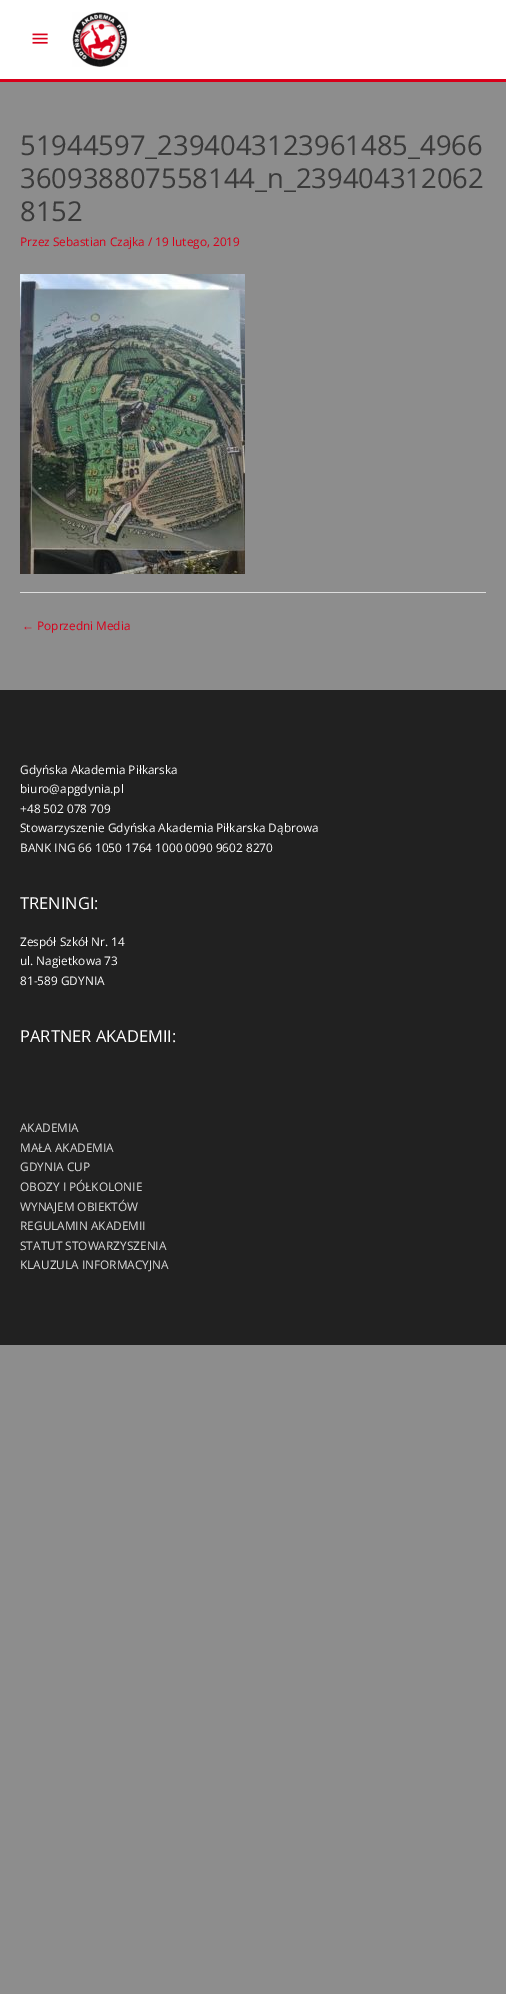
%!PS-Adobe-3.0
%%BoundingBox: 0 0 506 1994
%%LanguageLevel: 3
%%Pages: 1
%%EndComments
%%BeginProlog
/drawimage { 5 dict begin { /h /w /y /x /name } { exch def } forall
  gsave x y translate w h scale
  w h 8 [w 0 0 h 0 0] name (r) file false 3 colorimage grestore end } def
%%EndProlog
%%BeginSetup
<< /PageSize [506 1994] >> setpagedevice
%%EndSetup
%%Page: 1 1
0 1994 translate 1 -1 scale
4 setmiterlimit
0.553 setgray
0 0 506 1994 rectfill
1 setgray
0 0 506 79 rectfill
0.847 0 0.102 setrgbcolor
0 79 506 3 rectfill
(images/1.raw) 32 33 16 11 drawimage
(images/2.raw) 72 12 56 55 drawimage
(images/3.raw) 20 274 225 300 drawimage
0.867 setgray
20 592 466 1 rectfill
0.129 setgray
0 690 506 655 rectfill
/OpenSans-Regular [27.4 0 0 -27.4 0 0] selectfont
0.227 setgray
20 155 moveto (51944597_2394043123961485_4966) show
20 188 moveto (360938807558144_n_239404312062) show
20 221 moveto (8152) show
/OpenSans-Regular [11.85 0 0 -11.85 0 0] selectfont
0.847 0 0.102 setrgbcolor
20 246 moveto (Przez Sebastian Czajka / 19 lutego, 2019) show
/LiberationSans-Regular [11.85 0 0 -11.85 0 0] selectfont
22 630 moveto (←) show
/OpenSans-Regular [11.85 0 0 -11.85 0 0] selectfont
37 630 moveto (Poprzedni Media) show
1 setgray
20 774 moveto (Gdyńska Akademia Piłkarska) show
20 793 moveto (biuro@apgdynia.pl) show
20 813 moveto (+48 502 078 709) show
20 832 moveto (Stowarzyszenie Gdyńska Akademia Piłkarska Dąbrowa) show
20 852 moveto (BANK ING 66 1050 1764 1000 0090 9602 8270) show
/OpenSans-Regular [16.5 0 0 -16.5 0 0] selectfont
20 909 moveto (TRENINGI:) show
/OpenSans-Regular [11.85 0 0 -11.85 0 0] selectfont
20 946 moveto (Zespół Szkół Nr. 14) show
20 965 moveto (ul. Nagietkowa 73) show
20 985 moveto (81-589 GDYNIA) show
/OpenSans-Regular [16.5 0 0 -16.5 0 0] selectfont
20 1042 moveto (PARTNER AKADEMII:) show
/OpenSans-Regular [11.85 0 0 -11.85 0 0] selectfont
0.867 setgray
20 1132 moveto (AKADEMIA) show
20 1152 moveto (MAŁA AKADEMIA) show
20 1171 moveto (GDYNIA CUP) show
20 1191 moveto (OBOZY I PÓŁKOLONIE) show
20 1211 moveto (WYNAJEM OBIEKTÓW) show
20 1230 moveto (REGULAMIN AKADEMII) show
20 1250 moveto (STATUT STOWARZYSZENIA) show
20 1269 moveto (KLAUZULA INFORMACYJNA) show
showpage
%%EOF
